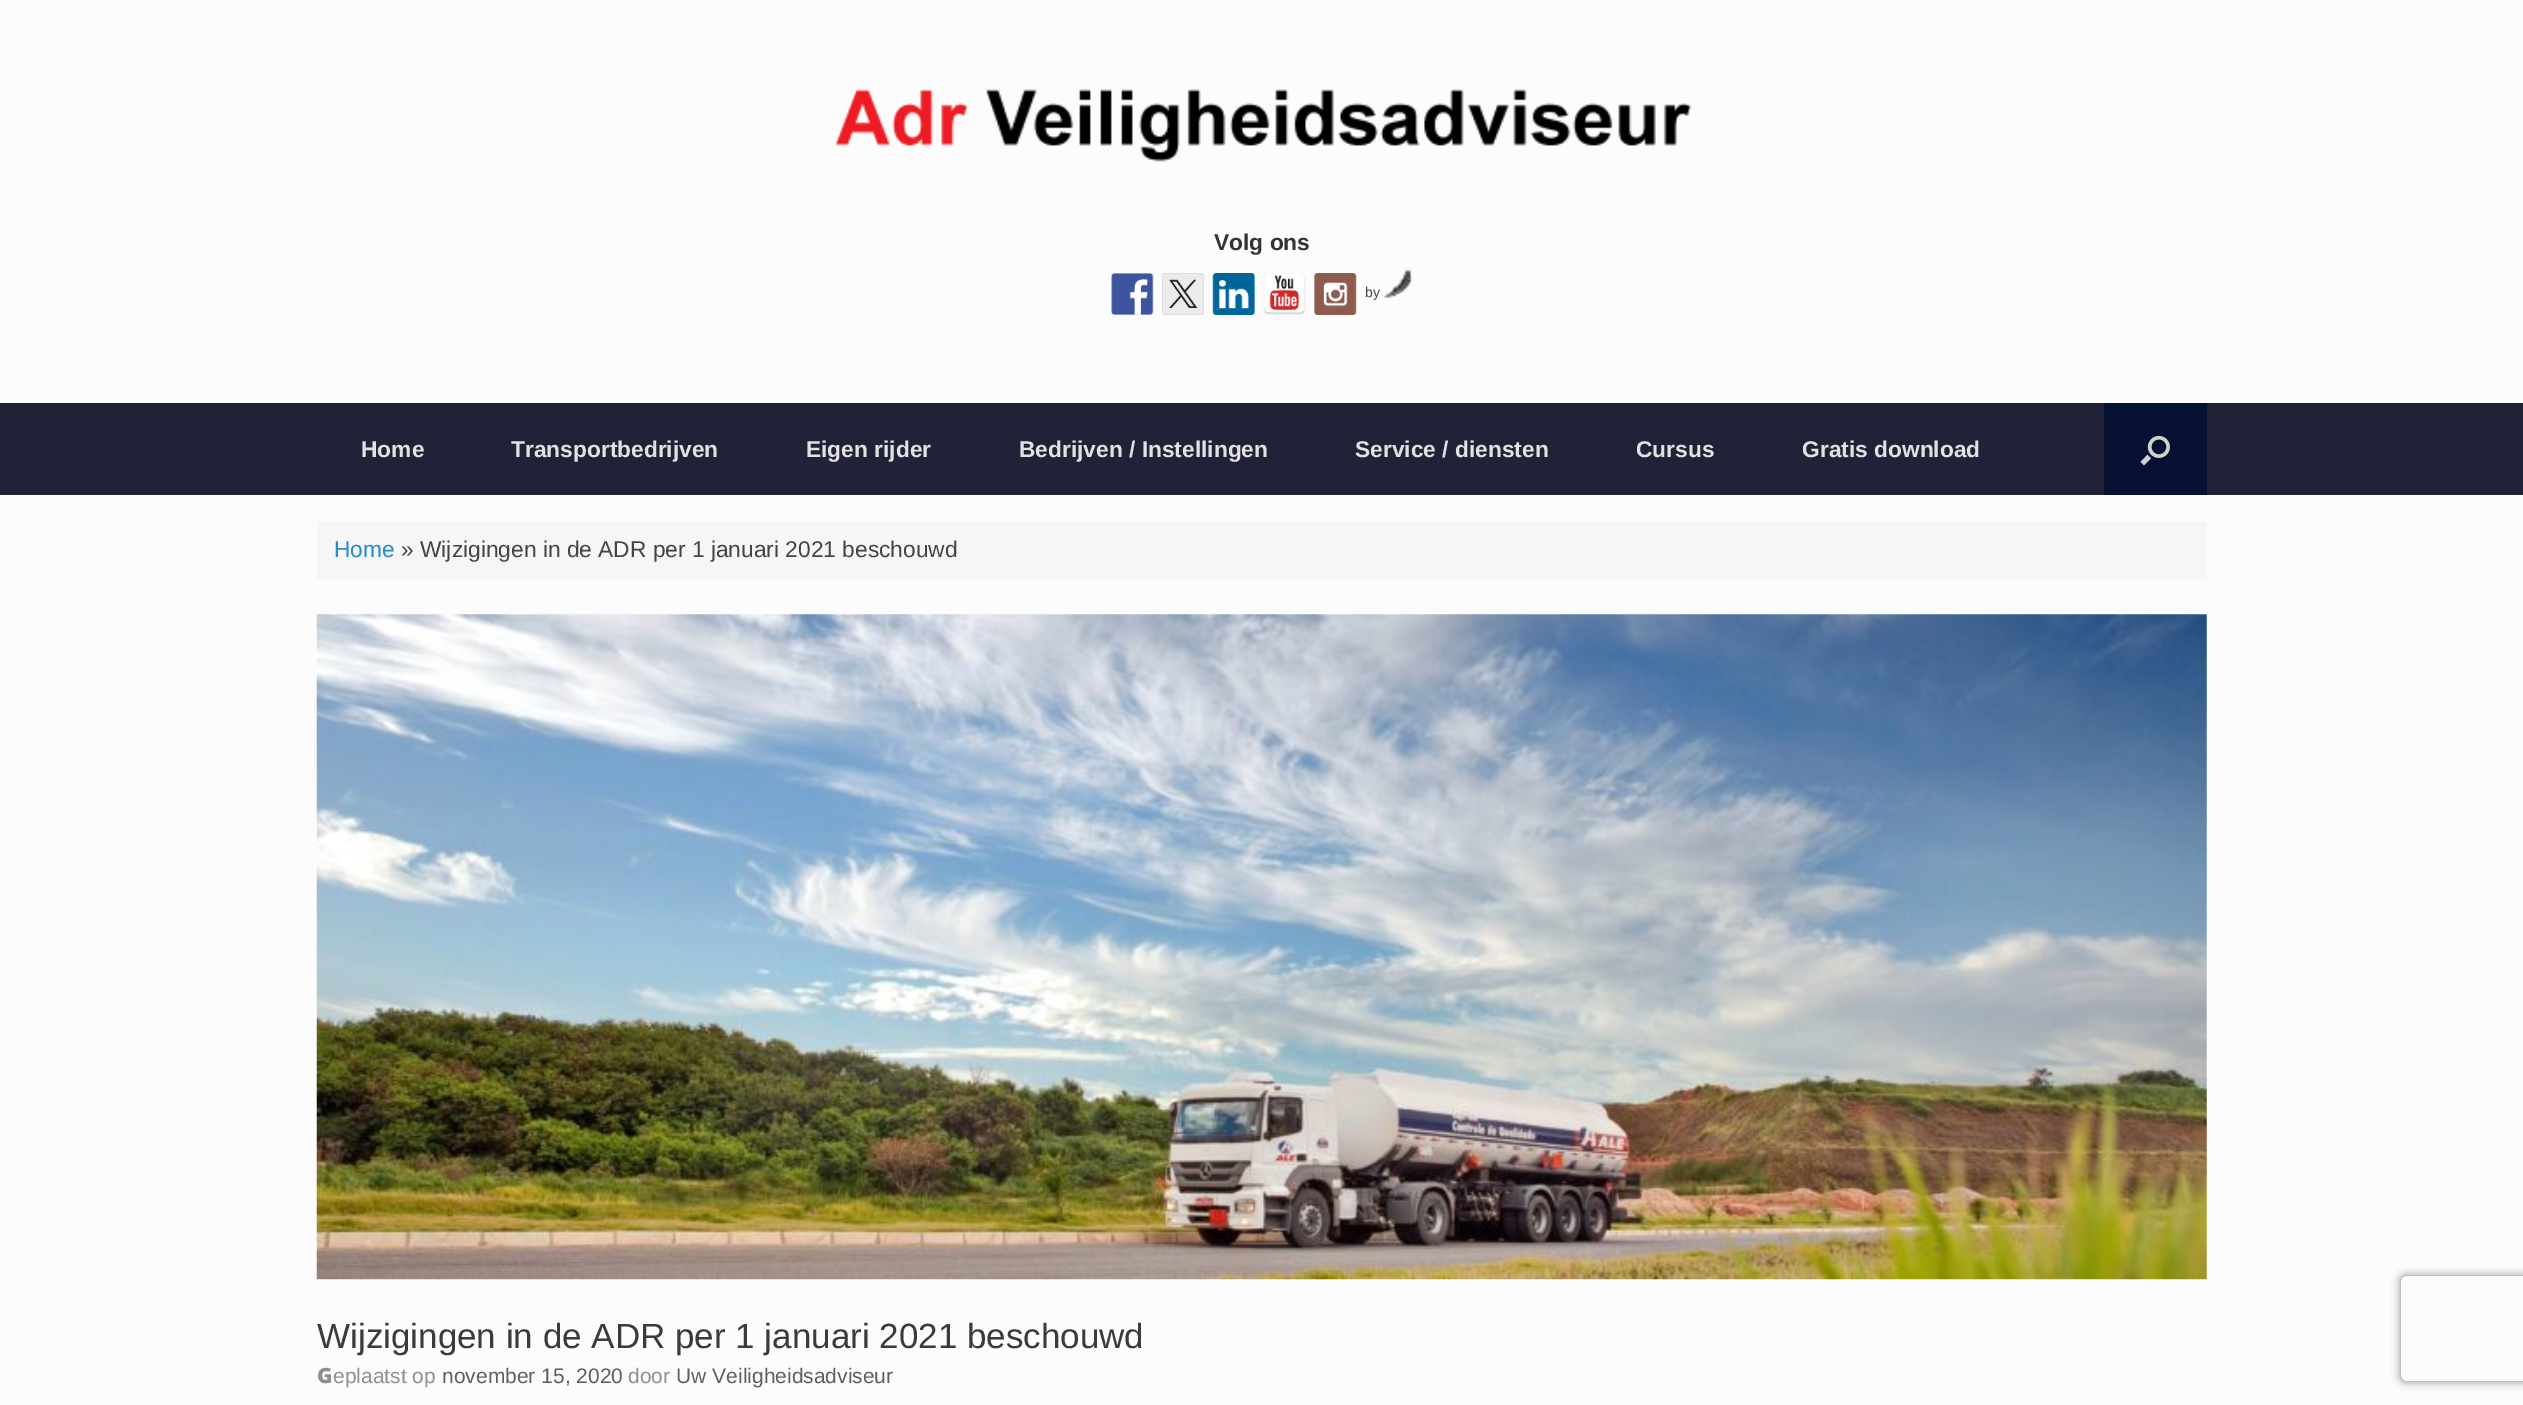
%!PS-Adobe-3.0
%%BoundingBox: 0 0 2523 1405
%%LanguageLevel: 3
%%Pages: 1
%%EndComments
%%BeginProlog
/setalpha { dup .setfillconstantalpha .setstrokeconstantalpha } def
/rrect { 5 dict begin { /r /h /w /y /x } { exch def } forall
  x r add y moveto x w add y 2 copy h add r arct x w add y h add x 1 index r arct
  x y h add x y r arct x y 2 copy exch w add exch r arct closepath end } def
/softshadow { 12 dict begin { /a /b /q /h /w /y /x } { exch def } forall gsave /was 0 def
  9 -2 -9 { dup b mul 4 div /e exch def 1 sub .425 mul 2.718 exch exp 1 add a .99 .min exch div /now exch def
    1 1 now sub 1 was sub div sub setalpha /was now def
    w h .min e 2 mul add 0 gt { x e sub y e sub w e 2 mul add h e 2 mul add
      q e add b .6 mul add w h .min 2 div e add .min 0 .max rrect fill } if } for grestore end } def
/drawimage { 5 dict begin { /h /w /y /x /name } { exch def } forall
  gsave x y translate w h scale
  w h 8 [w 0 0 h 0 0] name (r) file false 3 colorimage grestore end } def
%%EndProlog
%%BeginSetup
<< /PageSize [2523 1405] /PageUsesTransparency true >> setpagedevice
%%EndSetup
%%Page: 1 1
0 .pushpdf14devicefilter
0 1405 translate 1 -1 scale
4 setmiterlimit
0.988 setgray
0 0 2523 1405 rectfill
(images/1.raw) 835 89 856 73 drawimage
(images/2.raw) 1111 273 43 42 drawimage
(images/3.raw) 1162 273 42 42 drawimage
(images/4.raw) 1212 273 43 42 drawimage
(images/5.raw) 1263 273 43 42 drawimage
(images/6.raw) 1314 273 43 42 drawimage
(images/7.raw) 1384 269 29 29 drawimage
0.129 0.129 0.22 setrgbcolor
0 403 2523 92 rectfill
0.024 0.063 0.2 setrgbcolor
2104 403 103 92 rectfill
(images/8.raw) 2140 435 30 31 drawimage
0.965 setgray
317 522 1890 57 rectfill
(images/9.raw) 316 614 1891 666 drawimage
gsave
newpath 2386 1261 moveto 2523 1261 lineto 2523 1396 lineto 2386 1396 lineto closepath 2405 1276 moveto 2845 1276 lineto 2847 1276 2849 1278 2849 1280 curveto 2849 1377 lineto 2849 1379 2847 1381 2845 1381 curveto 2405 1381 lineto 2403 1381 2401 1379 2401 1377 curveto 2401 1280 lineto 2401 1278 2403 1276 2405 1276 curveto closepath eoclip newpath
0.502 setgray
2401 1276 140 105 4 4.5 1 softshadow
grestore
/LiberationSans-Bold [22.75 0 0 -22.75 0 0] selectfont
0.2 setgray
1214 250 moveto (Volg ons) show
/LiberationSans-Regular [14 0 0 -14 0 0] selectfont
0.267 setgray
1365 297 moveto (by) show
/LiberationSans-Bold [22.75 0 0 -22.75 0 0] selectfont
0.886 setgray
361 457 moveto (Home) show
511 457 moveto (Transportbedrijven) show
806 457 moveto (Eigen rijder) show
1019 457 moveto (Bedrijven / Instellingen) show
1355 457 moveto (Service / diensten) show
1636 457 moveto (Cursus) show
1802 457 moveto (Gratis download) show
/LiberationSans-Regular [22.75 0 0 -22.75 0 0] selectfont
0.141 0.549 0.784 setrgbcolor
334 557 moveto (Home) show
0.267 setgray
401 557 moveto (» Wijzigingen in de ADR per 1 januari 2021 beschouwd) show
/LiberationSans-Regular [35 0 0 -35 0 0] selectfont
0.231 setgray
317 1348 moveto (Wijzigingen in de ADR per 1 januari 2021 beschouwd) show
/NotoSans-Black [21 0 0 -21 0 0] selectfont
0.561 setgray
317 1383 moveto (G) show
/LiberationSans-Regular [21 0 0 -21 0 0] selectfont
333 1383 moveto (eplaatst op) show
0.369 setgray
442 1383 moveto (november 15, 2020) show
0.561 setgray
628 1383 moveto (door) show
0.369 setgray
676 1383 moveto (Uw Veiligheidsadviseur) show
.poppdf14devicefilter showpage
%%EOF
